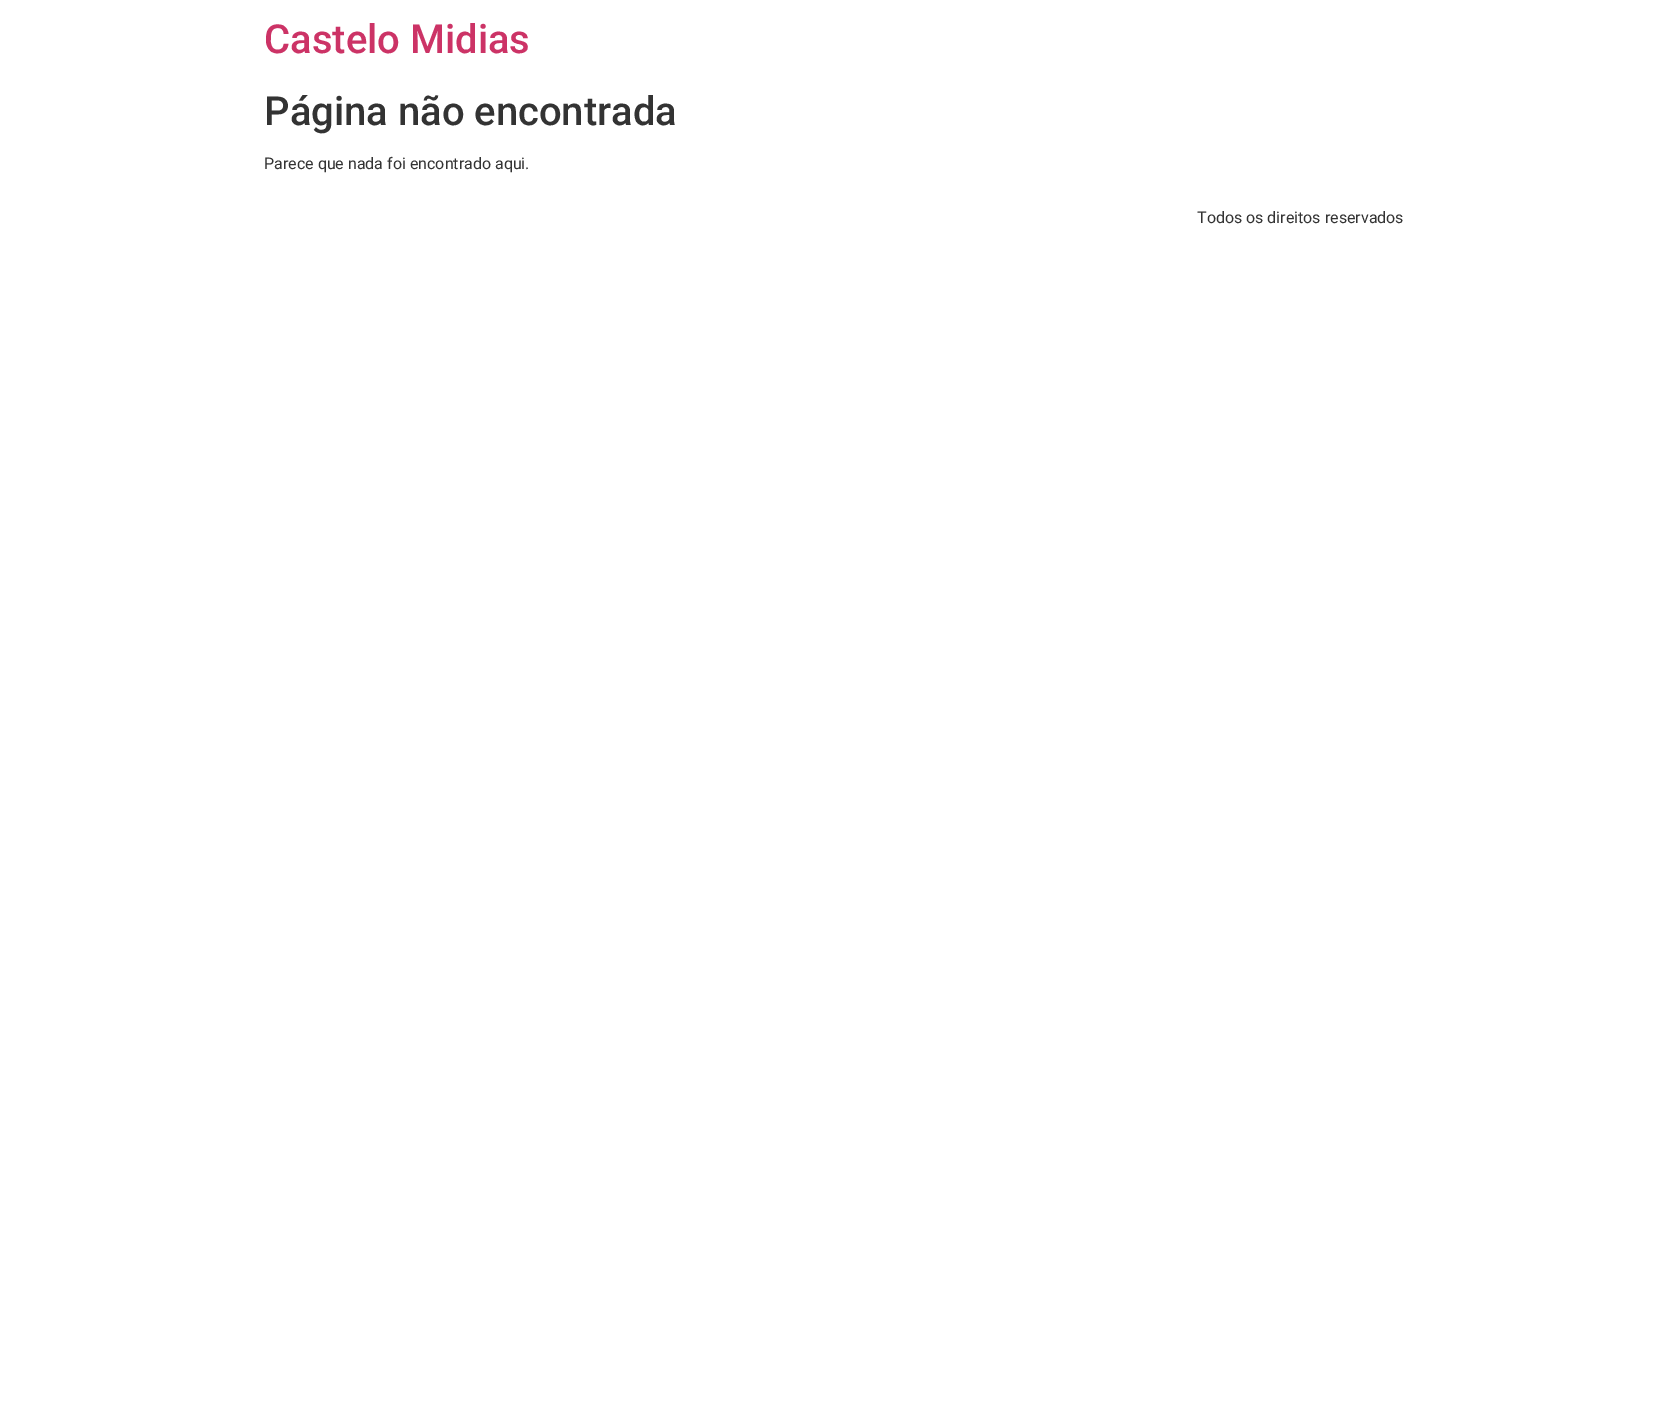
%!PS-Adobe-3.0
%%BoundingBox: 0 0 1667 1415
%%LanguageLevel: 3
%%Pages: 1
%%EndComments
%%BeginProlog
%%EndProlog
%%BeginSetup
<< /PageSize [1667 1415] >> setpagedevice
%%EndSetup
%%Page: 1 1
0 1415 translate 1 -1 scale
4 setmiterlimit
1 setgray
0 0 1667 1415 rectfill
/Roboto-Medium [40 0 0 -40 0 0] selectfont
0.8 0.2 0.4 setrgbcolor
264 53 moveto (Castelo Midias) show
0.2 setgray
264 125 moveto (Página não encontrada) show
/Roboto-Regular [16 0 0 -16 0 0] selectfont
264 169 moveto (Parece que nada foi encontrado aqui.) show
1197 223 moveto (Todos os direitos reservados) show
showpage
%%EOF
